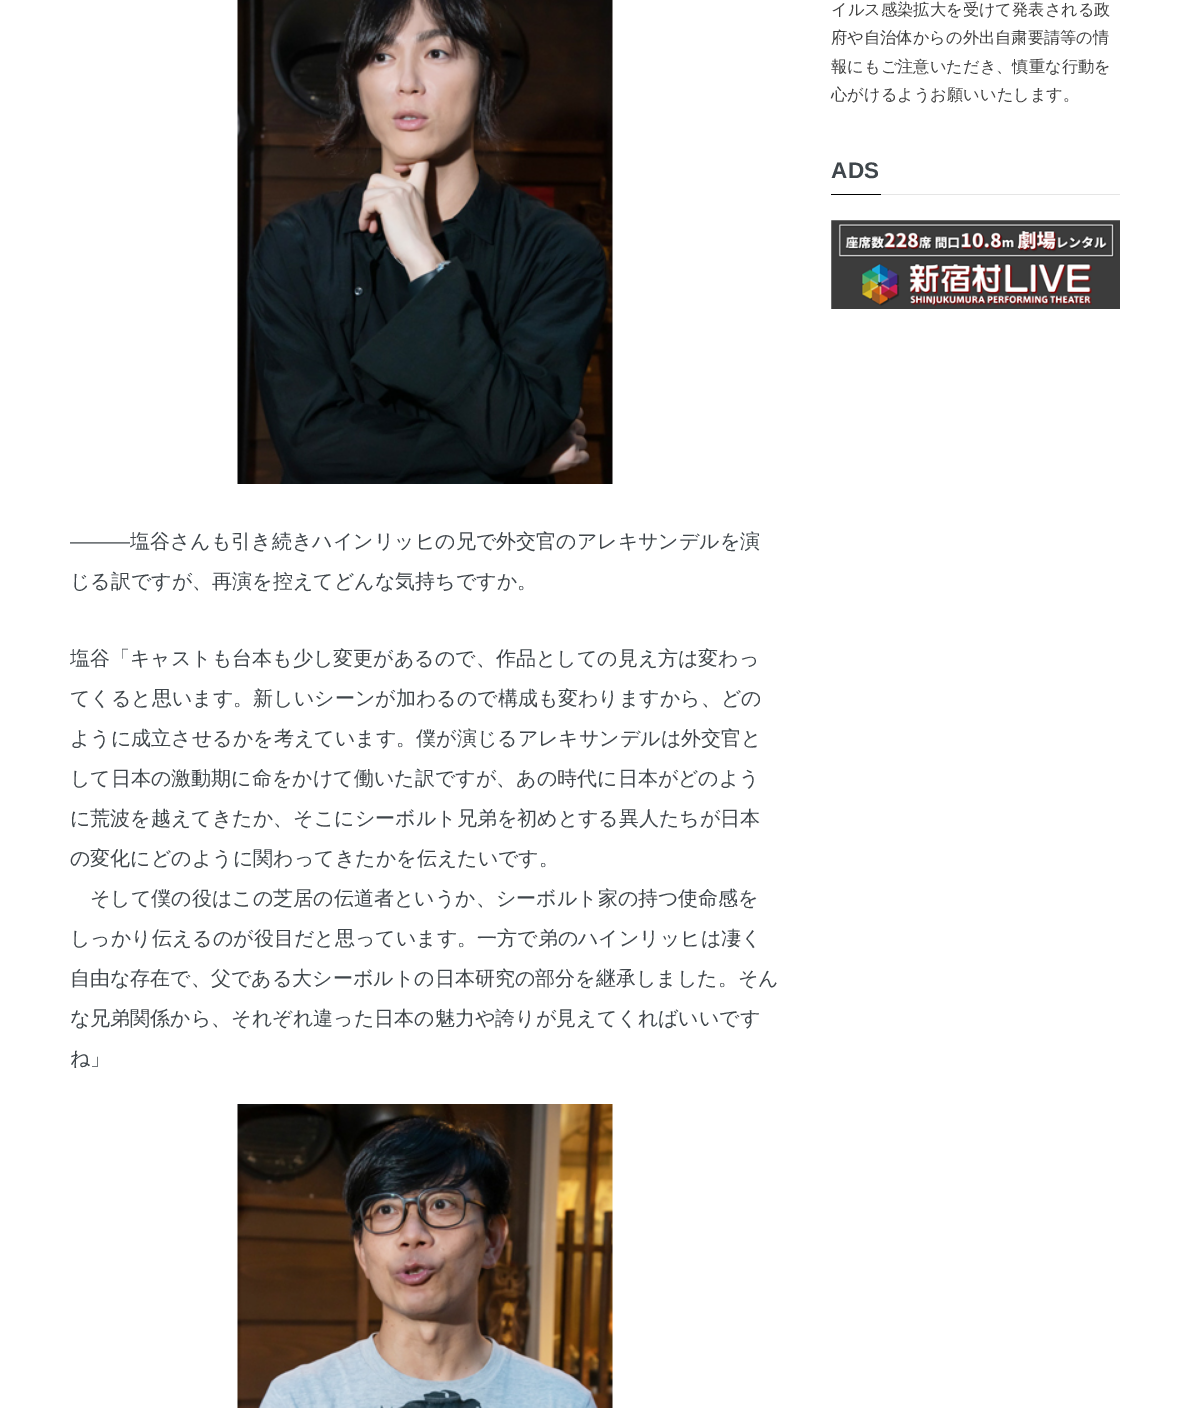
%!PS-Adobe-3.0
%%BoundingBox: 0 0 1189 1408
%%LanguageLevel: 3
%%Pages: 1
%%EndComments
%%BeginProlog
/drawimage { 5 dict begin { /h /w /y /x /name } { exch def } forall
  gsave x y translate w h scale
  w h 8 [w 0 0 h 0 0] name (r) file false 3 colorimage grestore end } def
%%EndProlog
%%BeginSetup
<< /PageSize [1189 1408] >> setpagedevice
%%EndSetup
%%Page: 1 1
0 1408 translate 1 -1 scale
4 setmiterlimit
1 setgray
0 0 1189 1408 rectfill
0 setgray
831 194 50 1 rectfill
0.898 setgray
881 194 239 1 rectfill
(images/1.raw) 831 220 289 89 drawimage
(images/2.raw) 237 0 376 484 drawimage
(images/3.raw) 237 1104 376 304 drawimage
/WenQuanYiZenHei-Medium [16.25 0 0 -16.25 0 0] selectfont
0.247 setgray
831 15 moveto (イルス感染拡大を受けて発表される政) show
831 43 moveto (府や自治体からの外出自粛要請等の情) show
831 72 moveto (報にもご注意いただき、慎重な行動を) show
831 100 moveto (心がけるようお願いいたします。) show
/LiberationSans-Bold [22.5 0 0 -22.5 0 0] selectfont
0.247 0.275 0.294 setrgbcolor
831 178 moveto 0.5 0 (ADS) ashow
/LiberationSans-Regular [20 0 0 -20 0 0] selectfont
70 548 moveto (―――) show
/WenQuanYiZenHei-Medium [20 0 0 -20 0 0] selectfont
130 548 moveto (塩谷さんも引き続きハインリッヒの兄で外交官のアレキサンデルを演) show
70 588 moveto (じる訳ですが、再演を控えてどんな気持ちですか。) show
70 665 moveto (塩谷「キャストも台本も少し変更があるので、作品としての見え方は変わっ) show
70 705 moveto (てくると思います。新しいシーンが加わるので構成も変わりますから、どの) show
70 745 moveto (ように成立させるかを考えています。僕が演じるアレキサンデルは外交官と) show
70 785 moveto (して日本の激動期に命をかけて働いた訳ですが、あの時代に日本がどのよう) show
70 825 moveto (に荒波を越えてきたか、そこにシーボルト兄弟を初めとする異人たちが日本) show
70 865 moveto (の変化にどのように関わってきたかを伝えたいです。) show
90 905 moveto (そして僕の役はこの芝居の伝道者というか、シーボルト家の持つ使命感を) show
70 945 moveto (しっかり伝えるのが役目だと思っています。一方で弟のハインリッヒは凄く) show
70 985 moveto (自由な存在で、父である大シーボルトの日本研究の部分を継承しました。そん) show
70 1025 moveto (な兄弟関係から、それぞれ違った日本の魅力や誇りが見えてくればいいです) show
70 1065 moveto (ね」) show
showpage
%%EOF
